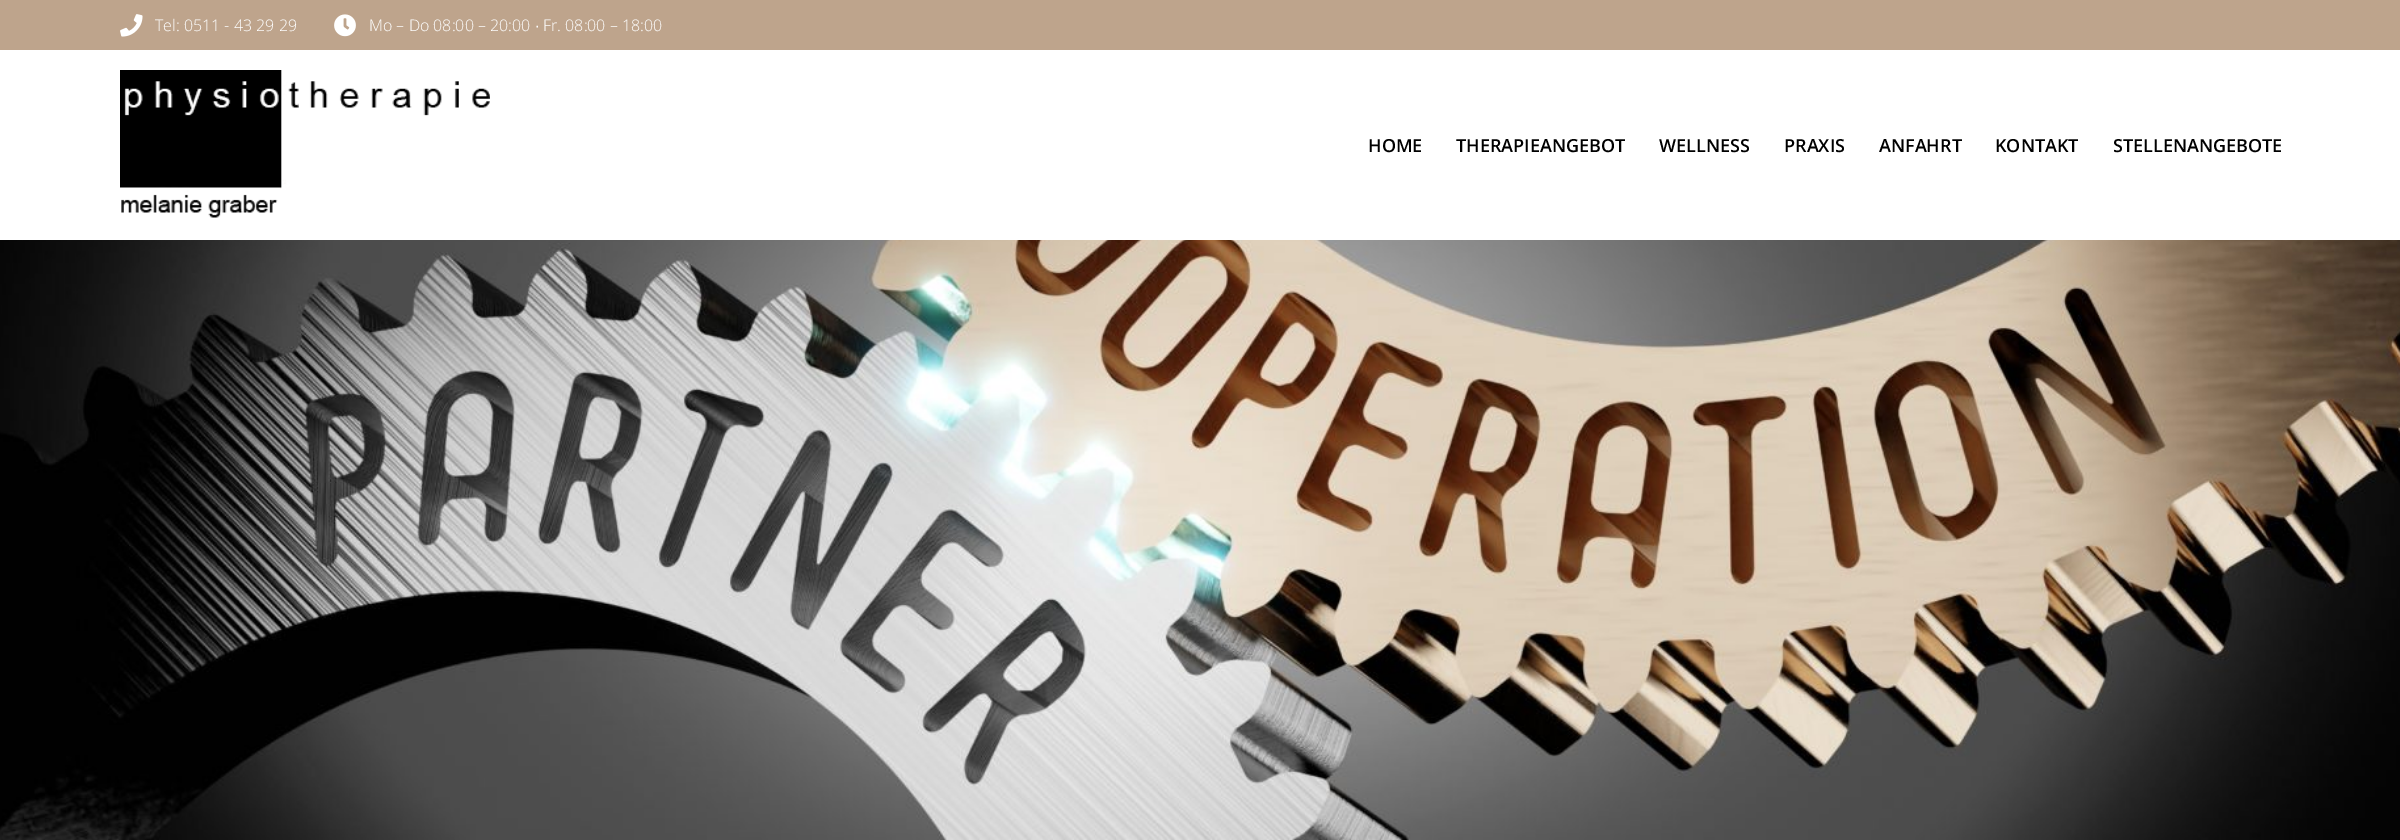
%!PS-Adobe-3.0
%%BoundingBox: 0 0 2400 840
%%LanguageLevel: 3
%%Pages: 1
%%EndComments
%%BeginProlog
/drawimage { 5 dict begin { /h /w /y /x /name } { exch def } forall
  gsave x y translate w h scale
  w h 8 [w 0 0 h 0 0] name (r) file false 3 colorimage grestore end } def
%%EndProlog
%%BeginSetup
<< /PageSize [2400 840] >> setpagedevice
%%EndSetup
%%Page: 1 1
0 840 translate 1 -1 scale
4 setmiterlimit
0.745 0.643 0.549 setrgbcolor
0 0 2400 840 rectfill
(images/1.raw) 120 14 23 23 drawimage
(images/2.raw) 334 14 22 23 drawimage
1 setgray
0 50 2400 190 rectfill
(images/3.raw) 120 70 370 148 drawimage
(images/4.raw) 0 240 2400 600 drawimage
/OpenSans-Light [16 0 0 -16 0 0] selectfont
155 31 moveto (Tel: 0511 - 43 29 29) show
369 31 moveto (Mo – Do 08:00 – 20:00) show
/LiberationSans-Regular [16 0 0 -16 0 0] selectfont
535 31 moveto (∙) show
/OpenSans-Light [16 0 0 -16 0 0] selectfont
543 31 moveto (Fr. 08:00 – 18:00) show
/OpenSans-SemiBold [18 0 0 -18 0 0] selectfont
0 setgray
1368 152 moveto (HOME) show
1456 152 moveto (THERAPIEANGEBOT) show
1659 152 moveto (WELLNESS) show
1784 152 moveto (PRAXIS) show
1879 152 moveto (ANFAHRT) show
1995 152 moveto (KONTAKT) show
2113 152 moveto (STELLENANGEBOTE) show
showpage
%%EOF
